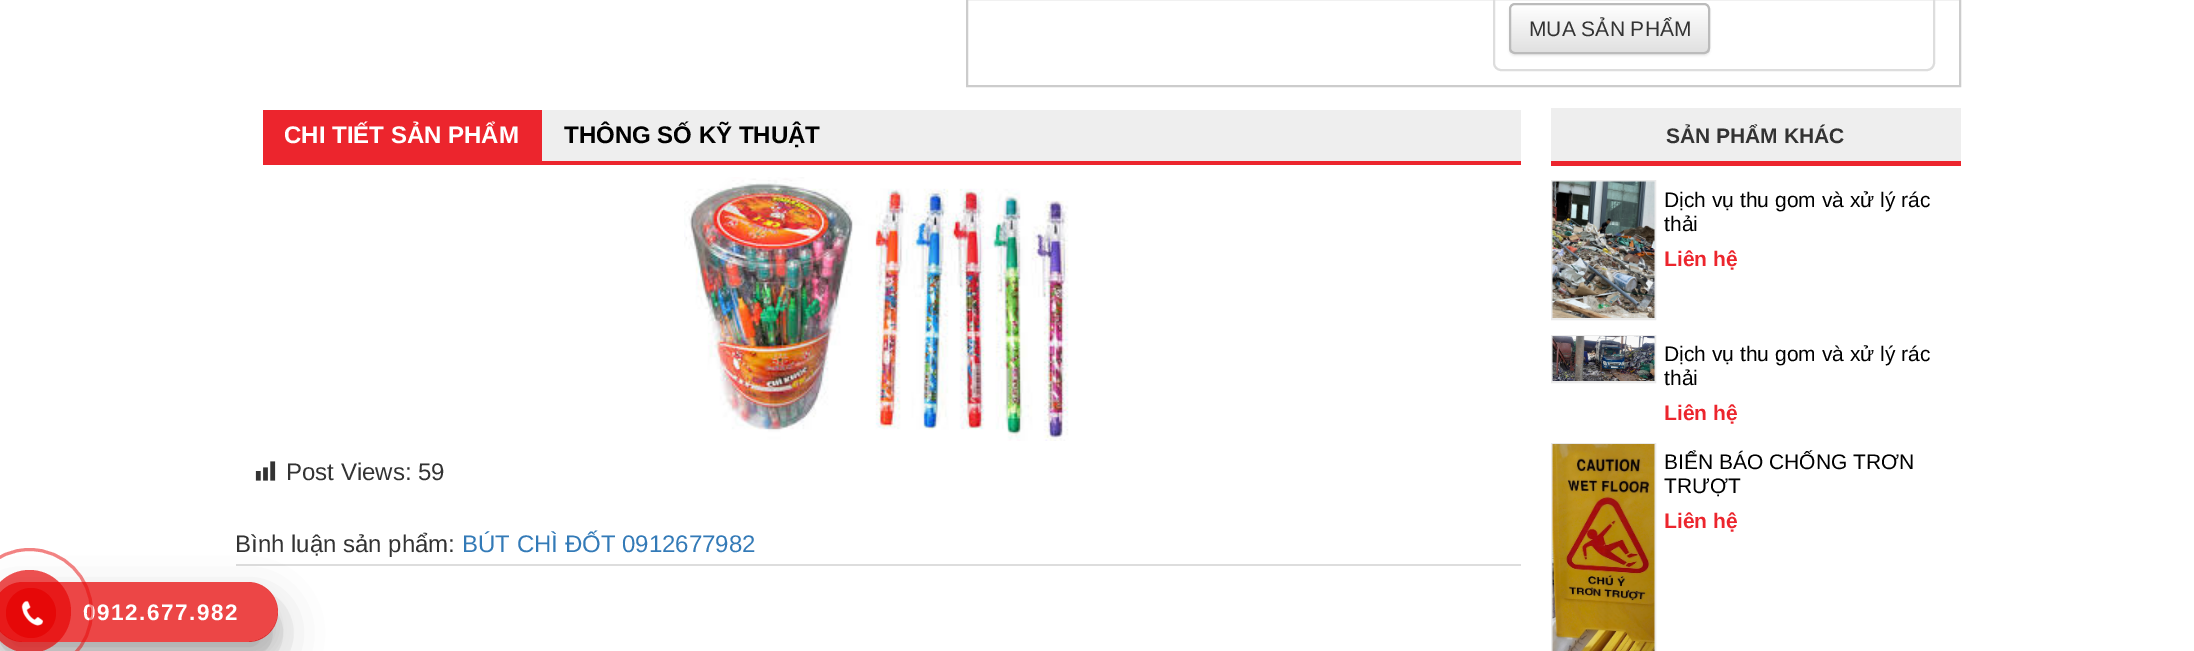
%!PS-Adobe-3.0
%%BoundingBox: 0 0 2194 651
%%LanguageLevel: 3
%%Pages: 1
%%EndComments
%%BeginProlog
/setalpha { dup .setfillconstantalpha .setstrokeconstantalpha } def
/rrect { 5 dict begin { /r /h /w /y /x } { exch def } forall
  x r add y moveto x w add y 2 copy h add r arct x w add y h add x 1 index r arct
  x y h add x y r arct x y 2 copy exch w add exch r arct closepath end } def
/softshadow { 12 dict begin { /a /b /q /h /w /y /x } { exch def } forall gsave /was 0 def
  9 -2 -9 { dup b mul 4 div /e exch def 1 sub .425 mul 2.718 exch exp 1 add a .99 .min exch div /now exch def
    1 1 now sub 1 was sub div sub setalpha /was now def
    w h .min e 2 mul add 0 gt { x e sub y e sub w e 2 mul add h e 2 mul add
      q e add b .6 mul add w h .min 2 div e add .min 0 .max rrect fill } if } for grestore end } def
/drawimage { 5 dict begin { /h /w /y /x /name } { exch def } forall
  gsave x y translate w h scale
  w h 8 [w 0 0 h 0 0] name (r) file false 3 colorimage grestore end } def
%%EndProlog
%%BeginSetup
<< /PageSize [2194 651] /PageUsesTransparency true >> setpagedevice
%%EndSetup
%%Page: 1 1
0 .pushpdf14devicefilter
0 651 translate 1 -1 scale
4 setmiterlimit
1 setgray
0 0 2194 651 rectfill
0.8 setgray
2 setlinewidth
967 -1 993 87 rectstroke
0.867 setgray
1494 -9 440 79 7 rrect stroke
0 setgray
1509 5 201 51 6 1 0.07 softshadow
gsave
1509 3 201 51 6 rrect clip newpath
gsave newpath 1509 5 moveto 1710 5 lineto 1710 53 lineto 1509 53 lineto closepath clip newpath
<< /ShadingType 2 /ColorSpace /DeviceRGB /Coords [1610 4.5 1610 53] /Extend [true true] /Function << /FunctionType 2 /Domain [0 1] /C0 [1 1 1] /C1 [0.878 0.878 0.878] /N 1 >> >> shfill grestore
grestore
0.15 setalpha
1 setgray
newpath 1515 6 moveto 1704 6 lineto 1706 6 1708 8 1708 10 curveto 1708 51 lineto 1709 50 1709 49 1709 48 curveto 1709 10 lineto 1709 7 1707 5 1704 5 curveto 1516 5 lineto 1514 5 1513 6 1512 7 curveto closepath fill
1 setalpha
0.733 setgray
1510 4 199 49 5 rrect stroke
0.933 setgray
542 110 979 51 rectfill
0.925 0.145 0.176 setrgbcolor
263 161 1258 4 rectfill
263 110 279 51 rectfill
(images/1.raw) 684 177 385 264 drawimage
(images/2.raw) 255 461 21 20 drawimage
0.867 setgray
236 564 1285 2 rectfill
0.933 setgray
1551 108 410 53 rectfill
0.925 0.145 0.176 setrgbcolor
1551 161 410 5 rectfill
0.918 setgray
1552 181 103 138 rectstroke
(images/3.raw) 1552 181 103 137 drawimage
1552 336 103 46 rectstroke
(images/4.raw) 1552 336 103 45 drawimage
1552 444 103 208 rectstroke
(images/5.raw) 1552 444 103 207 drawimage
gsave
newpath 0 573 moveto 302 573 lineto 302 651 lineto 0 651 lineto closepath 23 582 moveto 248 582 lineto 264.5 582 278 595.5 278 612 curveto 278 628.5 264.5 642 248 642 curveto 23 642 lineto 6.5 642 -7 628.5 -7 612 curveto -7 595.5 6.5 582 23 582 curveto closepath eoclip newpath
0 setgray
-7 597 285 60 30 7.5 0.1 softshadow
grestore
gsave
newpath 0 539 moveto 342 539 lineto 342 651 lineto 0 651 lineto closepath 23 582 moveto 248 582 lineto 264.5 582 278 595.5 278 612 curveto 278 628.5 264.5 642 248 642 curveto 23 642 lineto 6.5 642 -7 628.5 -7 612 curveto -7 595.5 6.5 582 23 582 curveto closepath eoclip newpath
0 setgray
-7 603 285 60 30 21 0.25 softshadow
grestore
0.75 setalpha
0.902 0.031 0.031 setrgbcolor
-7 582 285 60 30 rrect fill
/LiberationSans-Regular [21 0 0 -21 0 0] selectfont
1 setalpha
0.2 setgray
1529 36 moveto (MUA SẢN PHẨM) show
/LiberationSans-Bold [24 0 0 -24 0 0] selectfont
1 setgray
284 143 moveto (CHI TIẾT SẢN PHẨM) show
0 setgray
564 143 moveto (THÔNG SỐ KỸ THUẬT) show
/LiberationSans-Regular [24 0 0 -24 0 0] selectfont
0.2 setgray
286 480 moveto (Post Views: 59) show
235 552 moveto (Bình luận sản phẩm:) show
0.2 0.478 0.718 setrgbcolor
462 552 moveto (BÚT CHÌ ĐỐT 0912677982) show
/LiberationSans-Bold [21 0 0 -21 0 0] selectfont
0.2 setgray
1666 143 moveto (SẢN PHẨM KHÁC) show
/LiberationSans-Regular [21 0 0 -21 0 0] selectfont
0 setgray
1664 207 moveto (Dịch vụ thu gom và xử lý rác) show
1664 231 moveto (thải) show
/LiberationSans-Bold [21 0 0 -21 0 0] selectfont
0.925 0.145 0.176 setrgbcolor
1664 266 moveto (Liên hệ) show
/LiberationSans-Regular [21 0 0 -21 0 0] selectfont
0 setgray
1664 361 moveto (Dịch vụ thu gom và xử lý rác) show
1664 385 moveto (thải) show
/LiberationSans-Bold [21 0 0 -21 0 0] selectfont
0.925 0.145 0.176 setrgbcolor
1664 420 moveto (Liên hệ) show
/LiberationSans-Regular [21 0 0 -21 0 0] selectfont
0 setgray
1664 469 moveto (BIỂN BÁO CHỐNG TRƠN) show
1664 493 moveto (TRƯỢT) show
/LiberationSans-Bold [21 0 0 -21 0 0] selectfont
0.925 0.145 0.176 setrgbcolor
1664 528 moveto (Liên hệ) show
/LiberationSans-Bold [22.5 0 0 -22.5 0 0] selectfont
1 setgray
83 620 moveto 1.5 0 (0912.677.982) ashow
0.5 setalpha
0.902 0.031 0.031 setrgbcolor
3 setlinewidth
newpath 29.5 611.5 62 0 360 arc closepath stroke
0.7 setalpha
newpath 29.5 611.5 41.5 0 360 arc closepath fill
1 setalpha
newpath 31 613 25 0 360 arc closepath fill
(images/6.raw) 21 600 23 26 drawimage
.poppdf14devicefilter showpage
%%EOF
